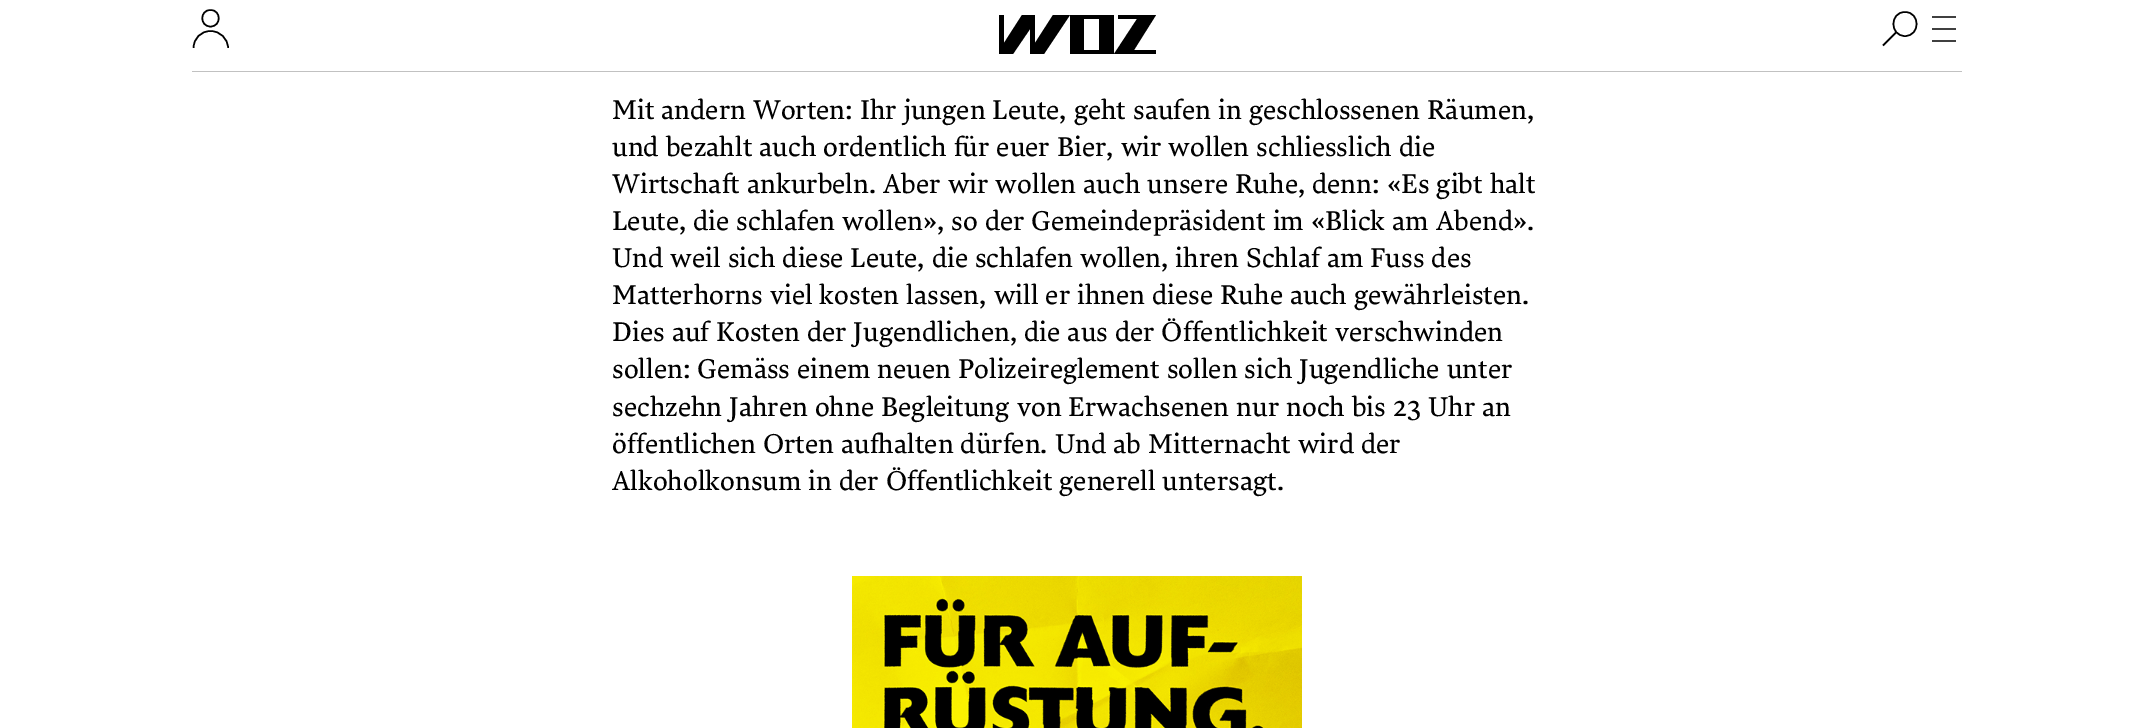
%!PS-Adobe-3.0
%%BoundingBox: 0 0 2154 728
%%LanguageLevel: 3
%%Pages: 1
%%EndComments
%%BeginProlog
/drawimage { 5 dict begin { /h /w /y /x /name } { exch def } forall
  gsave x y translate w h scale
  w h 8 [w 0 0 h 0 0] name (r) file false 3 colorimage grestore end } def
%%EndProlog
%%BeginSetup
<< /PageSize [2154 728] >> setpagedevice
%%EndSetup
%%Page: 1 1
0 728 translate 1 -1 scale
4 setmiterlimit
1 setgray
0 0 2154 728 rectfill
0 setgray
1.5 setlinewidth
newpath 193.5 48 moveto 193.5 38.5 201 31 210.5 31 curveto 220 31 228 38.5 228 48 curveto 210.5 26.5 moveto 221.5 26.5 221.5 10 210.5 10 curveto 199.5 10 199.5 26.5 210.5 26.5 curveto closepath stroke
newpath 1053 15 moveto 1035 43 lineto 1035 15 lineto 1022 15 lineto 1004 43 lineto 1004 15 lineto 999 15 lineto 999 54 lineto 1013 54 lineto 1030 29 lineto 1030 54 lineto 1044 54 lineto 1070 15 lineto closepath 1084 19 moveto 1099 19 lineto 1099 50 lineto 1084 50 lineto closepath 1070 54 moveto 1114 54 lineto 1114 15 lineto 1070 15 lineto closepath 1118 15 moveto 1118 19 lineto 1137 19 lineto 1114 54 lineto 1156 54 lineto 1156 50 lineto 1134 50 lineto 1156 15 lineto closepath fill
newpath 1905 36 moveto 1920.5 36 1920.5 12 1905 12 curveto 1889.5 12 1889.5 36 1905 36 curveto closepath 1896.5 32 moveto 1883 45.5 lineto stroke
0.251 setgray
1932 16 24 2 rectfill
1932 28 24 2 rectfill
1932 40 24 2 rectfill
0.757 setgray
192 71 1770 1 rectfill
(images/1.raw) 852 576 450 152 drawimage
/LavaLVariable-Regular [27 0 0 -27 0 0] selectfont
0 setgray
612 119 moveto (Mit andern Worten: Ihr jungen Leute, geht saufen in geschlossenen Räumen,) show
612 156 moveto (und bezahlt auch ordentlich für euer Bier, wir wollen schliesslich die) show
612 193 moveto (Wirtschaft ankurbeln. Aber wir wollen auch unsere Ruhe, denn: «Es gibt halt) show
612 230 moveto (Leute, die schlafen wollen», so der Gemeindepräsident im «Blick am Abend».) show
612 267 moveto (Und weil sich diese Leute, die schlafen wollen, ihren Schlaf am Fuss des) show
612 304 moveto (Matterhorns viel kosten lassen, will er ihnen diese Ruhe auch gewährleisten.) show
612 341 moveto (Dies auf Kosten der Jugendlichen, die aus der Öffentlichkeit verschwinden) show
612 378 moveto (sollen: Gemäss einem neuen Polizeireglement sollen sich Jugendliche unter) show
612 416 moveto (sechzehn Jahren ohne Begleitung von Erwachsenen nur noch bis 23 Uhr an) show
612 453 moveto (öffentlichen Orten aufhalten dürfen. Und ab Mitternacht wird der) show
612 490 moveto (Alkoholkonsum in der Öffentlichkeit generell untersagt.) show
showpage
%%EOF
